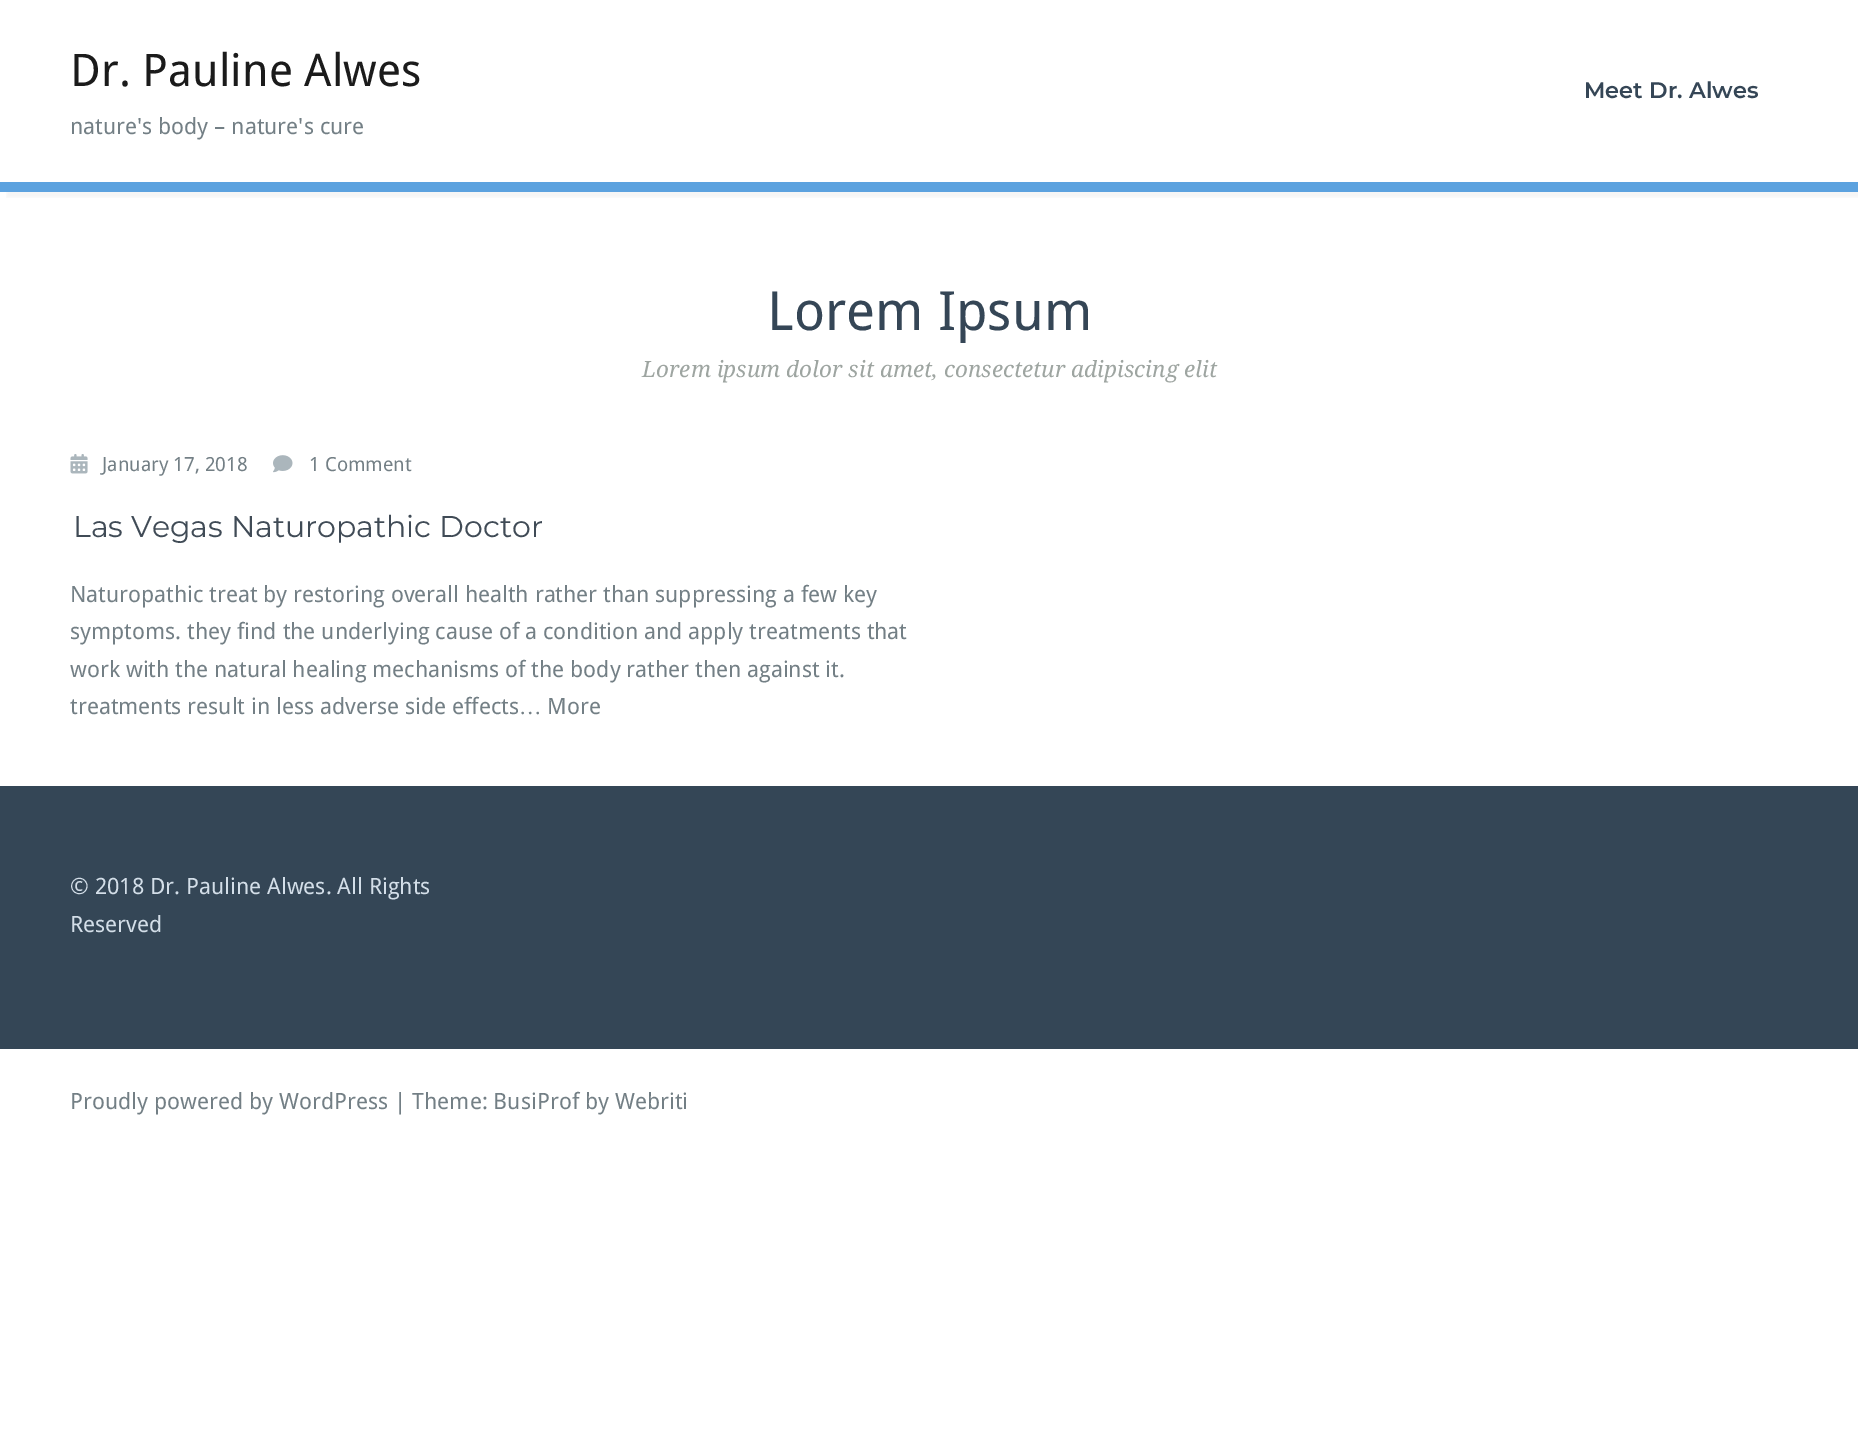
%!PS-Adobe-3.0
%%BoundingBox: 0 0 1858 1456
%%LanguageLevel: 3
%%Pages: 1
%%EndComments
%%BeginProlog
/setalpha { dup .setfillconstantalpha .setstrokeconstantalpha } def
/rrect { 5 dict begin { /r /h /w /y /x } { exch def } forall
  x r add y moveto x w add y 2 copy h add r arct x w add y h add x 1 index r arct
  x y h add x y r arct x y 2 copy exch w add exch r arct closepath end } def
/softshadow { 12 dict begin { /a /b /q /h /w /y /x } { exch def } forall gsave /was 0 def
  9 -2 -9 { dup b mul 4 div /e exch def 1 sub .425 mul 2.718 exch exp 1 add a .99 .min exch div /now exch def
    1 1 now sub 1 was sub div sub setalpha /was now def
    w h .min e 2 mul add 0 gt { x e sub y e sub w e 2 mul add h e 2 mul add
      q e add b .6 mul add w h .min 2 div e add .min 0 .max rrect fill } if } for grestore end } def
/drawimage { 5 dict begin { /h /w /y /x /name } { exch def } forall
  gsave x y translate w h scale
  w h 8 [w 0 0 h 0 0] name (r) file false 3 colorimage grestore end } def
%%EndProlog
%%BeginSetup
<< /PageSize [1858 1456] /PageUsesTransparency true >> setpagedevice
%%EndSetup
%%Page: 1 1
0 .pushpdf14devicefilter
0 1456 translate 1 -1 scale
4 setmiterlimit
1 setgray
0 0 1858 1456 rectfill
gsave
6 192 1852 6 rectclip
0 setgray
6 6 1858 192 0 2 0.04 softshadow
grestore
0.361 0.635 0.875 setrgbcolor
0 182 1858 10 rectfill
(images/1.raw) 70 454 18 20 drawimage
(images/2.raw) 273 455 20 18 drawimage
0.204 0.275 0.337 setrgbcolor
0 786 1858 263 rectfill
/DroidSans-Regular [45 0 0 -45 0 0] selectfont
0.106 setgray
70 86 moveto (Dr. Pauline Alwes) show
/DroidSans-Regular [22.5 0 0 -22.5 0 0] selectfont
0.451 0.498 0.522 setrgbcolor
70 134 moveto (nature's body – nature's cure) show
/Montserrat-SemiBold [22.5 0 0 -22.5 0 0] selectfont
0.208 0.275 0.337 setrgbcolor
1584 98 moveto (Meet Dr. Alwes) show
/DroidSans-Regular [54 0 0 -54 0 0] selectfont
767 330 moveto (Lorem Ipsum) show
/DroidSerif-Italic [22.5 0 0 -22.5 0 0] selectfont
0.62 0.647 0.631 setrgbcolor
642 377 moveto (Lorem ipsum dolor sit amet, consectetur adipiscing elit) show
/DroidSans-Regular [19.5 0 0 -19.5 0 0] selectfont
0.451 0.498 0.522 setrgbcolor
102 471 moveto (January 17, 2018) show
309 471 moveto (1 Comment) show
/Montserrat-Regular [30 0 0 -30 0 0] selectfont
0.251 0.294 0.337 setrgbcolor
73 537 moveto (Las Vegas Naturopathic Doctor) show
/DroidSans-Regular [22.5 0 0 -22.5 0 0] selectfont
0.451 0.498 0.522 setrgbcolor
70 602 moveto (Naturopathic treat by restoring overall health rather than suppressing a few key) show
70 639 moveto (symptoms. they find the underlying cause of a condition and apply treatments that) show
70 677 moveto (work with the natural healing mechanisms of the body rather then against it.) show
70 714 moveto (treatments result in less adverse side effects) show
/LiberationSerif-Regular [22.5 0 0 -22.5 0 0] selectfont
519 714 moveto (…) show
/DroidSans-Regular [22.5 0 0 -22.5 0 0] selectfont
547 714 moveto (More) show
0.827 0.871 0.91 setrgbcolor
70 894 moveto (© 2018 Dr. Pauline Alwes. All Rights) show
70 932 moveto (Reserved) show
0.451 0.498 0.522 setrgbcolor
70 1109 moveto (Proudly powered by WordPress | Theme: BusiProf by Webriti) show
.poppdf14devicefilter showpage
%%EOF
